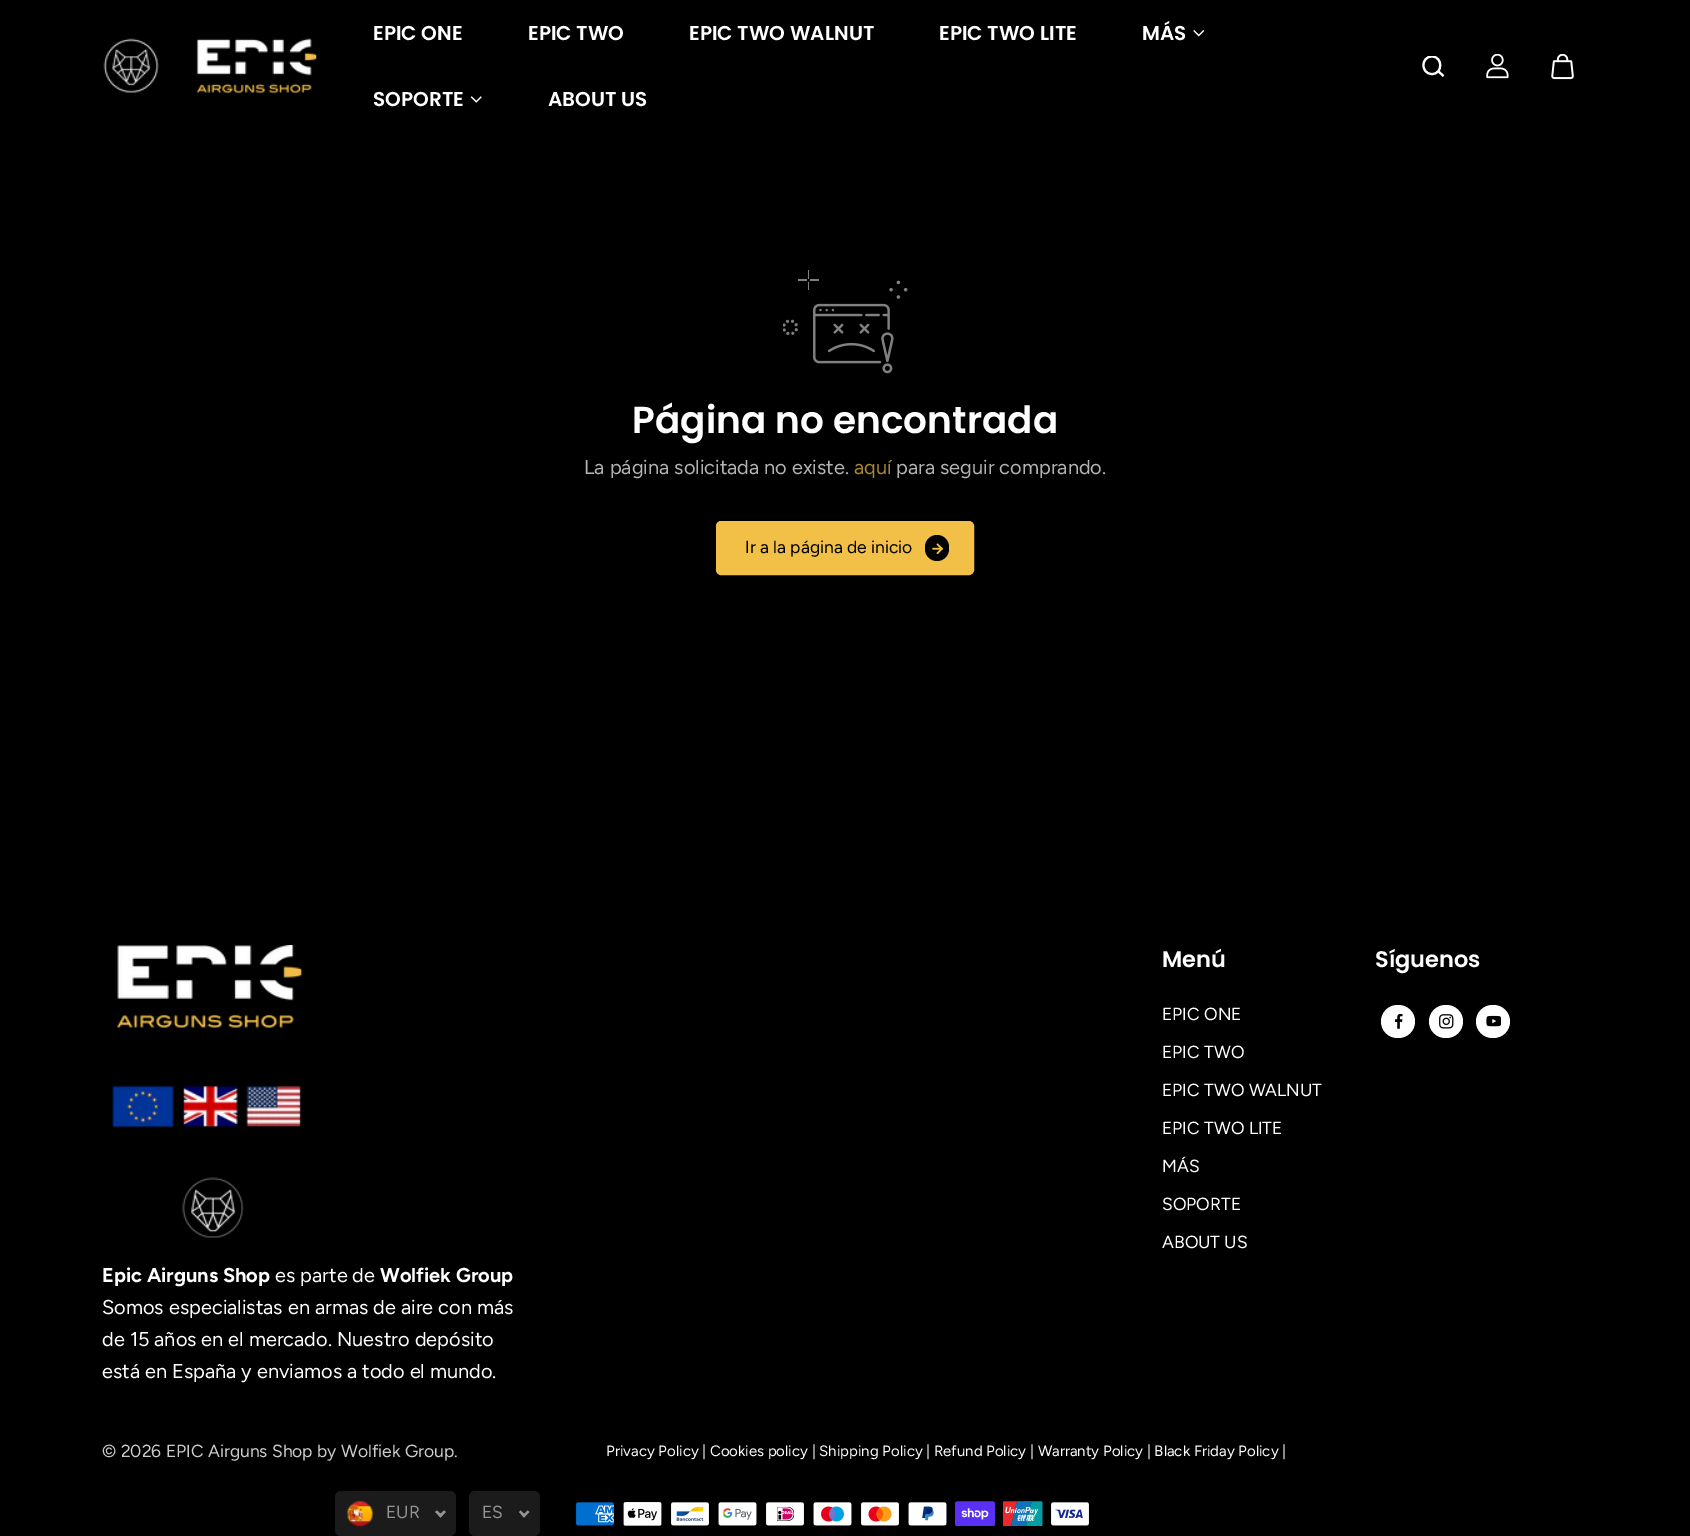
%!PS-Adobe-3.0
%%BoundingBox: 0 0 1690 1536
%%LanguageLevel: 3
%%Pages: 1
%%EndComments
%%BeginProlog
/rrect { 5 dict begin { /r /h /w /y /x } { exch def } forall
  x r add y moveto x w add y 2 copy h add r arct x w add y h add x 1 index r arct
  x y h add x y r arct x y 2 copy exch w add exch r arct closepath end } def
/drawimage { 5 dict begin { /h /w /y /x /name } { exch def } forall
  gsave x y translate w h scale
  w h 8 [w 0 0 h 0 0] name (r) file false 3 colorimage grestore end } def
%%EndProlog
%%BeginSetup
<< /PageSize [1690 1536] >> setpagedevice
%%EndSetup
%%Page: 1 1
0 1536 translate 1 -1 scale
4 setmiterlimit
0 setgray
0 0 1690 1536 rectfill
(images/1.raw) 103 38 214 56 drawimage
(images/2.raw) 1193 30 12 7 drawimage
(images/3.raw) 470 96 12 7 drawimage
gsave
1422 56 22 21 rectclip
1 setgray
2.1 setlinewidth
newpath 1432 74 moveto 1443 74 1443 56.5 1432 56.5 curveto 1420.5 56.5 1420.5 74 1432 74 curveto closepath stroke
grestore
1 setgray
2.1 setlinewidth
newpath 1438.5 71.5 moveto 1443.5 76 lineto stroke
(images/4.raw) 1486 54 23 25 drawimage
(images/5.raw) 1551 54 23 26 drawimage
(images/6.raw) 783 270 125 104 drawimage
0.953 0.753 0.278 setrgbcolor
716.5 521.5 257 53 4.5 rrect gsave fill grestore
1 setlinewidth
stroke
0 setgray
925 535 24 26 12 rrect fill
(images/7.raw) 932 543 11 12 drawimage
1 setgray
1381 1005 34 33 16.5 rrect fill
(images/8.raw) 1395 1014 8 15 drawimage
1429 1005 34 33 16.5 rrect fill
(images/9.raw) 1439 1014 15 15 drawimage
1476 1005 34 33 16.5 rrect fill
(images/10.raw) 1486 1015 15 12 drawimage
(images/11.raw) 112 945 191 293 drawimage
0.106 setgray
335 1491 121 45 6 rrect fill
(images/12.raw) 347 1501 26 26 drawimage
0.576 setgray
newpath 444 1510.5 moveto 446 1512 lineto 440.5 1517.5 lineto 438.5 1515.5 lineto closepath fill
newpath 437 1510.5 moveto 442.5 1515.5 lineto 440.5 1517.5 lineto 435 1512 lineto closepath fill
0.106 setgray
469 1491 71 45 6 rrect fill
0.576 setgray
newpath 527.5 1510.5 moveto 529.5 1512 lineto 524 1517.5 lineto 522.5 1515.5 lineto closepath fill
newpath 520.5 1510.5 moveto 526 1515.5 lineto 524 1517.5 lineto 519 1512 lineto closepath fill
(images/13.raw) 576 1502 38 24 drawimage
(images/14.raw) 623 1502 39 24 drawimage
(images/15.raw) 671 1502 38 24 drawimage
(images/16.raw) 718 1502 39 24 drawimage
(images/17.raw) 766 1502 38 24 drawimage
(images/18.raw) 813 1502 39 24 drawimage
(images/19.raw) 861 1502 38 24 drawimage
(images/20.raw) 908 1502 39 24 drawimage
(images/21.raw) 955 1501 40 25 drawimage
(images/22.raw) 1003 1501 40 25 drawimage
(images/23.raw) 1051 1502 38 24 drawimage
/Poppins-SemiBold [20 0 0 -20 0 0] selectfont
1 setgray
373 40 moveto (EPIC ONE) show
528 40 moveto (EPIC TWO) show
689 40 moveto (EPIC TWO WALNUT) show
939 40 moveto (EPIC TWO LITE) show
1142 40 moveto (MÁS) show
373 106 moveto (SOPORTE) show
548 106 moveto (ABOUT US) show
/Poppins-SemiBold [37.5 0 0 -37.5 0 0] selectfont
632 433 moveto (Página no encontrada) show
/Figtree-Regular [20 0 0 -20 0 0] selectfont
0.702 setgray
584 474 moveto (La página solicitada no existe.) show
0.667 0.525 0.196 setrgbcolor
854 474 moveto (aquí) show
0.702 setgray
896 474 moveto (para seguir comprando.) show
/Figtree-Regular [17.5 0 0 -17.5 0 0] selectfont
0 setgray
745 553 moveto (Ir a la página de inicio) show
/Poppins-SemiBold [22.5 0 0 -22.5 0 0] selectfont
1 setgray
1162 967 moveto (Menú) show
/Figtree-Regular [17.5 0 0 -17.5 0 0] selectfont
1162 1020 moveto (EPIC ONE) show
1162 1058 moveto (EPIC TWO) show
1162 1096 moveto (EPIC TWO WALNUT) show
1162 1134 moveto (EPIC TWO LITE) show
1162 1172 moveto (MÁS) show
1162 1210 moveto (SOPORTE) show
1162 1248 moveto (ABOUT US) show
/Poppins-SemiBold [22.5 0 0 -22.5 0 0] selectfont
1375 967 moveto (Síguenos) show
/Figtree-Bold [20 0 0 -20 0 0] selectfont
102 1282 moveto (Epic Airguns Shop) show
/Figtree-Regular [20 0 0 -20 0 0] selectfont
275 1282 moveto (es parte de) show
/Figtree-Bold [20 0 0 -20 0 0] selectfont
380 1282 moveto (Wolfiek Group) show
/Figtree-Regular [20 0 0 -20 0 0] selectfont
102 1314 moveto (Somos especialistas en armas de aire con más) show
102 1346 moveto (de 15 años en el mercado. Nuestro depósito) show
102 1378 moveto (está en España y enviamos a todo el mundo.) show
/Figtree-Regular [17.5 0 0 -17.5 0 0] selectfont
0.8 setgray
102 1457 moveto (© 2026 EPIC Airguns Shop by Wolfiek Group.) show
/Figtree-Regular [15 0 0 -15 0 0] selectfont
1 setgray
606 1456 moveto (Privacy Policy | Cookies policy | Shipping Policy | Refund Policy | Warranty Policy | Black Friday Policy |) show
/Figtree-Regular [17.5 0 0 -17.5 0 0] selectfont
0.576 setgray
386 1518 moveto (EUR) show
482 1518 moveto (ES) show
showpage
%%EOF
